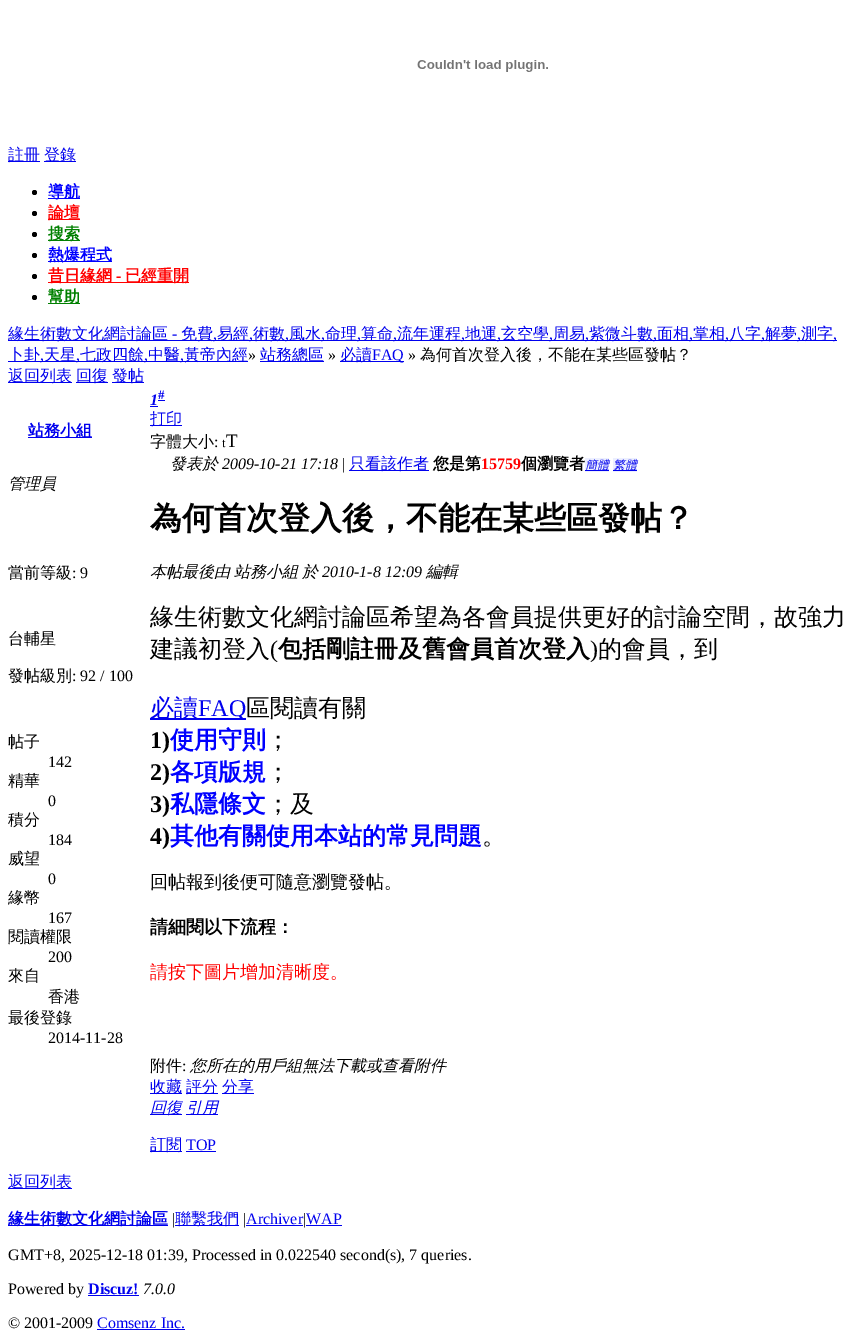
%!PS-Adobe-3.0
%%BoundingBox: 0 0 860 1340
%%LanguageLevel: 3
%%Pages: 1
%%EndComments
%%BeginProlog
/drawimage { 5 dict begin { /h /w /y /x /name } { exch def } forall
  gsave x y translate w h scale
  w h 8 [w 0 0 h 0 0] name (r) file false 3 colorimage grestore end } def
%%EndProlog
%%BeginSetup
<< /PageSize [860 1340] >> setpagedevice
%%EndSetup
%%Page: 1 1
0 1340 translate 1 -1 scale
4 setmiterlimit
1 setgray
0 0 860 1340 rectfill
(images/1.raw) 417 60 131 12 drawimage
0 0 0.933 setrgbcolor
8 161 32 1 rectfill
44 161 32 1 rectfill
0 setgray
newpath 34.5 192.5 2.5 0 360 arc closepath fill
0 0 1 setrgbcolor
48 198 32 1 rectfill
0 setgray
newpath 34.5 213.5 2.5 0 360 arc closepath fill
1 0 0 setrgbcolor
48 219 32 1 rectfill
0 setgray
newpath 34.5 234.5 2.5 0 360 arc closepath fill
0 0.502 0 setrgbcolor
48 240 32 1 rectfill
0 setgray
newpath 34.5 255.5 2.5 0 360 arc closepath fill
0 0 1 setrgbcolor
48 261 64 1 rectfill
0 setgray
newpath 34.5 276.5 2.5 0 360 arc closepath fill
1 0 0 setrgbcolor
48 282 141 1 rectfill
0 setgray
newpath 34.5 297.5 2.5 0 360 arc closepath fill
0 0.502 0 setrgbcolor
48 303 32 1 rectfill
0 0 0.933 setrgbcolor
8 340 829 1 rectfill
260 361 64 1 rectfill
340 361 64 1 rectfill
8 361 240 1 rectfill
8 382 64 1 rectfill
76 382 32 1 rectfill
112 382 32 1 rectfill
28 437 64 1 rectfill
150 406 8 1 rectfill
158 400 7 1 rectfill
150 425 32 1 rectfill
349 470 80 1 rectfill
0.925 0.937 1 setrgbcolor
585 458 24 14 rectfill
0 0 0.933 setrgbcolor
585 470 24 1 rectfill
0.925 0.937 1 setrgbcolor
613 458 24 14 rectfill
0 0 0.933 setrgbcolor
613 470 24 1 rectfill
150 718 96 2 rectfill
150 1093 32 1 rectfill
186 1093 32 1 rectfill
222 1093 32 1 rectfill
150 1114 32 1 rectfill
186 1114 32 1 rectfill
150 1151 32 1 rectfill
186 1151 30 1 rectfill
8 1188 64 1 rectfill
8 1225 160 1 rectfill
175 1225 64 1 rectfill
246 1225 57 1 rectfill
306 1225 36 1 rectfill
88 1295 51 1 rectfill
97 1329 88 1 rectfill
/WenQuanYiZenHei-Medium [16 0 0 -16 0 0] selectfont
8 160 moveto (註冊) show
44 160 moveto (登錄) show
/WenQuanYiZenHei-Bold [16 0 0 -16 0 0] selectfont
0 0 1 setrgbcolor
48 197 moveto (導航) show
1 0 0 setrgbcolor
48 218 moveto (論壇) show
0 0.502 0 setrgbcolor
48 239 moveto (搜索) show
0 0 1 setrgbcolor
48 260 moveto (熱爆程式) show
1 0 0 setrgbcolor
48 281 moveto (昔日緣網) show
/LiberationSerif-Bold [16 0 0 -16 0 0] selectfont
116 281 moveto (-) show
/WenQuanYiZenHei-Bold [16 0 0 -16 0 0] selectfont
125 281 moveto (已經重開) show
0 0.502 0 setrgbcolor
48 302 moveto (幫助) show
/WenQuanYiZenHei-Medium [16 0 0 -16 0 0] selectfont
0 0 0.933 setrgbcolor
8 339 moveto (緣生術數文化網討論區) show
/LiberationSerif-Regular [16 0 0 -16 0 0] selectfont
172 339 moveto (-) show
/WenQuanYiZenHei-Medium [16 0 0 -16 0 0] selectfont
181 339 moveto (免費) show
217 339 moveto (易經) show
253 339 moveto (術數) show
289 339 moveto (風水) show
325 339 moveto (命理) show
361 339 moveto (算命) show
397 339 moveto (流年運程) show
465 339 moveto (地運) show
501 339 moveto (玄空學) show
553 339 moveto (周易) show
589 339 moveto (紫微斗數) show
657 339 moveto (面相) show
693 339 moveto (掌相) show
729 339 moveto (八字) show
765 339 moveto (解夢) show
801 339 moveto (測字) show
/LiberationSerif-Regular [16 0 0 -16 0 0] selectfont
213 339 moveto (,) show
249 339 moveto (,) show
285 339 moveto (,) show
321 339 moveto (,) show
357 339 moveto (,) show
393 339 moveto (,) show
461 339 moveto (,) show
497 339 moveto (,) show
549 339 moveto (,) show
585 339 moveto (,) show
653 339 moveto (,) show
689 339 moveto (,) show
725 339 moveto (,) show
761 339 moveto (,) show
797 339 moveto (,) show
833 339 moveto (,) show
/WenQuanYiZenHei-Medium [16 0 0 -16 0 0] selectfont
8 360 moveto (卜卦) show
44 360 moveto (天星) show
80 360 moveto (七政四餘) show
148 360 moveto (中醫) show
184 360 moveto (黃帝內經) show
/LiberationSerif-Regular [16 0 0 -16 0 0] selectfont
0 setgray
248 360 moveto (») show
/WenQuanYiZenHei-Medium [16 0 0 -16 0 0] selectfont
0 0 0.933 setrgbcolor
260 360 moveto (站務總區) show
/LiberationSerif-Regular [16 0 0 -16 0 0] selectfont
0 setgray
328 360 moveto (») show
/WenQuanYiZenHei-Medium [16 0 0 -16 0 0] selectfont
0 0 0.933 setrgbcolor
340 360 moveto (必讀) show
/LiberationSerif-Regular [16 0 0 -16 0 0] selectfont
372 360 moveto (FAQ) show
0 setgray
408 360 moveto (») show
/WenQuanYiZenHei-Medium [16 0 0 -16 0 0] selectfont
420 360 moveto (為何首次登入後，不能在某些區發帖？) show
/LiberationSerif-Regular [16 0 0 -16 0 0] selectfont
0 0 0.933 setrgbcolor
40 360 moveto (,) show
76 360 moveto (,) show
144 360 moveto (,) show
180 360 moveto (,) show
/WenQuanYiZenHei-Medium [16 0 0 -16 0 0] selectfont
8 381 moveto (返回列表) show
76 381 moveto (回復) show
112 381 moveto (發帖) show
/WenQuanYiZenHei-Bold [16 0 0 -16 0 0] selectfont
28 436 moveto (站務小組) show
/WenQuanYiZenHei-MediumItalic [16 0 0 -16 0 0] selectfont
0 setgray
8 489 moveto (管理員) show
/WenQuanYiZenHei-Medium [16 0 0 -16 0 0] selectfont
8 578 moveto (當前等級) show
/LiberationSerif-Regular [16 0 0 -16 0 0] selectfont
72 578 moveto (: 9) show
/WenQuanYiZenHei-Medium [16 0 0 -16 0 0] selectfont
8 644 moveto (台輔星) show
8 681 moveto (發帖級別) show
/LiberationSerif-Regular [16 0 0 -16 0 0] selectfont
72 681 moveto (: 92 / 100) show
/WenQuanYiZenHei-Medium [16 0 0 -16 0 0] selectfont
8 747 moveto (帖子) show
/LiberationSerif-Regular [16 0 0 -16 0 0] selectfont
48 767 moveto (142) show
/WenQuanYiZenHei-Medium [16 0 0 -16 0 0] selectfont
8 786 moveto (精華) show
/LiberationSerif-Regular [16 0 0 -16 0 0] selectfont
48 806 moveto (0) show
/WenQuanYiZenHei-Medium [16 0 0 -16 0 0] selectfont
8 825 moveto (積分) show
/LiberationSerif-Regular [16 0 0 -16 0 0] selectfont
48 845 moveto (184) show
/WenQuanYiZenHei-Medium [16 0 0 -16 0 0] selectfont
8 864 moveto (威望) show
/LiberationSerif-Regular [16 0 0 -16 0 0] selectfont
48 884 moveto (0) show
/WenQuanYiZenHei-Medium [16 0 0 -16 0 0] selectfont
8 903 moveto (緣幣) show
/LiberationSerif-Regular [16 0 0 -16 0 0] selectfont
48 923 moveto (167) show
/WenQuanYiZenHei-Medium [16 0 0 -16 0 0] selectfont
8 942 moveto (閱讀權限) show
/LiberationSerif-Regular [16 0 0 -16 0 0] selectfont
48 962 moveto (200) show
/WenQuanYiZenHei-Medium [16 0 0 -16 0 0] selectfont
8 981 moveto (來自) show
48 1002 moveto (香港) show
8 1023 moveto (最後登錄) show
/LiberationSerif-Regular [16 0 0 -16 0 0] selectfont
48 1043 moveto (2014-11-28) show
/LiberationSerif-BoldItalic [16 0 0 -16 0 0] selectfont
0 0 0.933 setrgbcolor
150 405 moveto (1) show
/LiberationSerif-Bold [13 0 0 -13 0 0] selectfont
158 399 moveto (#) show
/WenQuanYiZenHei-Medium [16 0 0 -16 0 0] selectfont
150 424 moveto (打印) show
0 setgray
150 447 moveto (字體大小) show
/LiberationSerif-Regular [16 0 0 -16 0 0] selectfont
214 447 moveto (:) show
/LiberationSerif-Regular [13 0 0 -13 0 0] selectfont
222 447 moveto (t) show
/LiberationSerif-Regular [19 0 0 -19 0 0] selectfont
226 447 moveto (T) show
/WenQuanYiZenHei-MediumItalic [16 0 0 -16 0 0] selectfont
170 469 moveto (發表於) show
/LiberationSerif-Italic [16 0 0 -16 0 0] selectfont
222 469 moveto (2009-10-21 17:18) show
/LiberationSerif-Regular [16 0 0 -16 0 0] selectfont
342 469 moveto (|) show
/WenQuanYiZenHei-Medium [16 0 0 -16 0 0] selectfont
0 0 0.933 setrgbcolor
349 469 moveto (只看該作者) show
/WenQuanYiZenHei-Bold [16 0 0 -16 0 0] selectfont
0 setgray
433 469 moveto (您是第) show
/LiberationSerif-Bold [16 0 0 -16 0 0] selectfont
1 0 0 setrgbcolor
481 469 moveto (15759) show
/WenQuanYiZenHei-Bold [16 0 0 -16 0 0] selectfont
0 setgray
521 469 moveto (個瀏覽者) show
/WenQuanYiZenHei-MediumItalic [12 0 0 -12 0 0] selectfont
0 0 0.933 setrgbcolor
585 469 moveto (簡體) show
613 469 moveto (繁體) show
/WenQuanYiZenHei-Bold [32 0 0 -32 0 0] selectfont
0 setgray
150 529 moveto (為何首次登入後，不能在某些區發帖？) show
/WenQuanYiZenHei-MediumItalic [16 0 0 -16 0 0] selectfont
150 577 moveto (本帖最後由) show
234 577 moveto (站務小組) show
302 577 moveto (於) show
/LiberationSerif-Italic [16 0 0 -16 0 0] selectfont
322 577 moveto (2010-1-8 12:09) show
/WenQuanYiZenHei-MediumItalic [16 0 0 -16 0 0] selectfont
426 577 moveto (編輯) show
/WenQuanYiZenHei-Medium [24 0 0 -24 0 0] selectfont
150 625 moveto (緣生術數文化網討論區希望為各會員提供更好的討論空間，故強力) show
150 657 moveto (建議初登入) show
/LiberationSerif-Regular [24 0 0 -24 0 0] selectfont
270 657 moveto (\() show
/WenQuanYiZenHei-Bold [24 0 0 -24 0 0] selectfont
278 657 moveto (包括剛註冊及舊會員首次登入) show
/LiberationSerif-Regular [24 0 0 -24 0 0] selectfont
590 657 moveto (\)) show
/WenQuanYiZenHei-Medium [24 0 0 -24 0 0] selectfont
598 657 moveto (的會員，到) show
0 0 0.933 setrgbcolor
150 716 moveto (必讀) show
/LiberationSerif-Regular [24 0 0 -24 0 0] selectfont
198 716 moveto (FAQ) show
/WenQuanYiZenHei-Medium [24 0 0 -24 0 0] selectfont
0 setgray
246 716 moveto (區閱讀有關) show
/LiberationSerif-Bold [24 0 0 -24 0 0] selectfont
150 748 moveto (1\)) show
/WenQuanYiZenHei-Bold [24 0 0 -24 0 0] selectfont
0 0 1 setrgbcolor
170 748 moveto (使用守則) show
/WenQuanYiZenHei-Medium [24 0 0 -24 0 0] selectfont
0 setgray
266 748 moveto (；) show
/LiberationSerif-Bold [24 0 0 -24 0 0] selectfont
150 780 moveto (2\)) show
/WenQuanYiZenHei-Bold [24 0 0 -24 0 0] selectfont
0 0 1 setrgbcolor
170 780 moveto (各項版規) show
/WenQuanYiZenHei-Medium [24 0 0 -24 0 0] selectfont
0 setgray
266 780 moveto (；) show
/LiberationSerif-Bold [24 0 0 -24 0 0] selectfont
150 812 moveto (3\)) show
/WenQuanYiZenHei-Bold [24 0 0 -24 0 0] selectfont
0 0 1 setrgbcolor
170 812 moveto (私隱條文) show
/WenQuanYiZenHei-Medium [24 0 0 -24 0 0] selectfont
0 setgray
266 812 moveto (；及) show
/LiberationSerif-Bold [24 0 0 -24 0 0] selectfont
150 844 moveto (4\)) show
/WenQuanYiZenHei-Bold [24 0 0 -24 0 0] selectfont
0 0 1 setrgbcolor
170 844 moveto (其他有關使用本站的常見問題) show
/WenQuanYiZenHei-Medium [24 0 0 -24 0 0] selectfont
0 setgray
482 844 moveto (。) show
/WenQuanYiZenHei-Medium [18 0 0 -18 0 0] selectfont
150 888 moveto (回帖報到後便可隨意瀏覽發帖。) show
/WenQuanYiZenHei-Bold [18 0 0 -18 0 0] selectfont
150 933 moveto (請細閱以下流程：) show
/WenQuanYiZenHei-Medium [18 0 0 -18 0 0] selectfont
1 0 0 setrgbcolor
150 978 moveto (請按下圖片增加清晰度。) show
/WenQuanYiZenHei-Medium [16 0 0 -16 0 0] selectfont
0 setgray
150 1071 moveto (附件) show
/LiberationSerif-Regular [16 0 0 -16 0 0] selectfont
182 1071 moveto (:) show
/WenQuanYiZenHei-MediumItalic [16 0 0 -16 0 0] selectfont
190 1071 moveto (您所在的用戶組無法下載或查看附件) show
/WenQuanYiZenHei-Medium [16 0 0 -16 0 0] selectfont
0 0 0.933 setrgbcolor
150 1092 moveto (收藏) show
186 1092 moveto (評分) show
222 1092 moveto (分享) show
/WenQuanYiZenHei-MediumItalic [16 0 0 -16 0 0] selectfont
150 1113 moveto (回復) show
186 1113 moveto (引用) show
/WenQuanYiZenHei-Medium [16 0 0 -16 0 0] selectfont
150 1150 moveto (訂閱) show
/LiberationSerif-Regular [16 0 0 -16 0 0] selectfont
186 1150 moveto (TOP) show
/WenQuanYiZenHei-Medium [16 0 0 -16 0 0] selectfont
8 1187 moveto (返回列表) show
/WenQuanYiZenHei-Bold [16 0 0 -16 0 0] selectfont
8 1224 moveto (緣生術數文化網討論區) show
/LiberationSerif-Regular [16 0 0 -16 0 0] selectfont
0 setgray
172 1224 moveto (|) show
/WenQuanYiZenHei-Medium [16 0 0 -16 0 0] selectfont
0 0 0.933 setrgbcolor
175 1224 moveto (聯繫我們) show
/LiberationSerif-Regular [16 0 0 -16 0 0] selectfont
0 setgray
243 1224 moveto (|) show
0 0 0.933 setrgbcolor
246 1224 moveto (Archiver) show
0 setgray
303 1224 moveto (|) show
0 0 0.933 setrgbcolor
306 1224 moveto (WAP) show
0 setgray
8 1260 moveto (GMT+8, 2025-12-18 01:39, Processed in 0.022540 second\(s\), 7 queries.) show
8 1294 moveto (Powered by) show
/LiberationSerif-Bold [16 0 0 -16 0 0] selectfont
0 0 0.933 setrgbcolor
88 1294 moveto (Discuz!) show
/LiberationSerif-Italic [16 0 0 -16 0 0] selectfont
0 setgray
143 1294 moveto (7.0.0) show
/LiberationSerif-Regular [16 0 0 -16 0 0] selectfont
8 1328 moveto (© 2001-2009) show
0 0 0.933 setrgbcolor
97 1328 moveto (Comsenz Inc.) show
showpage
%%EOF
